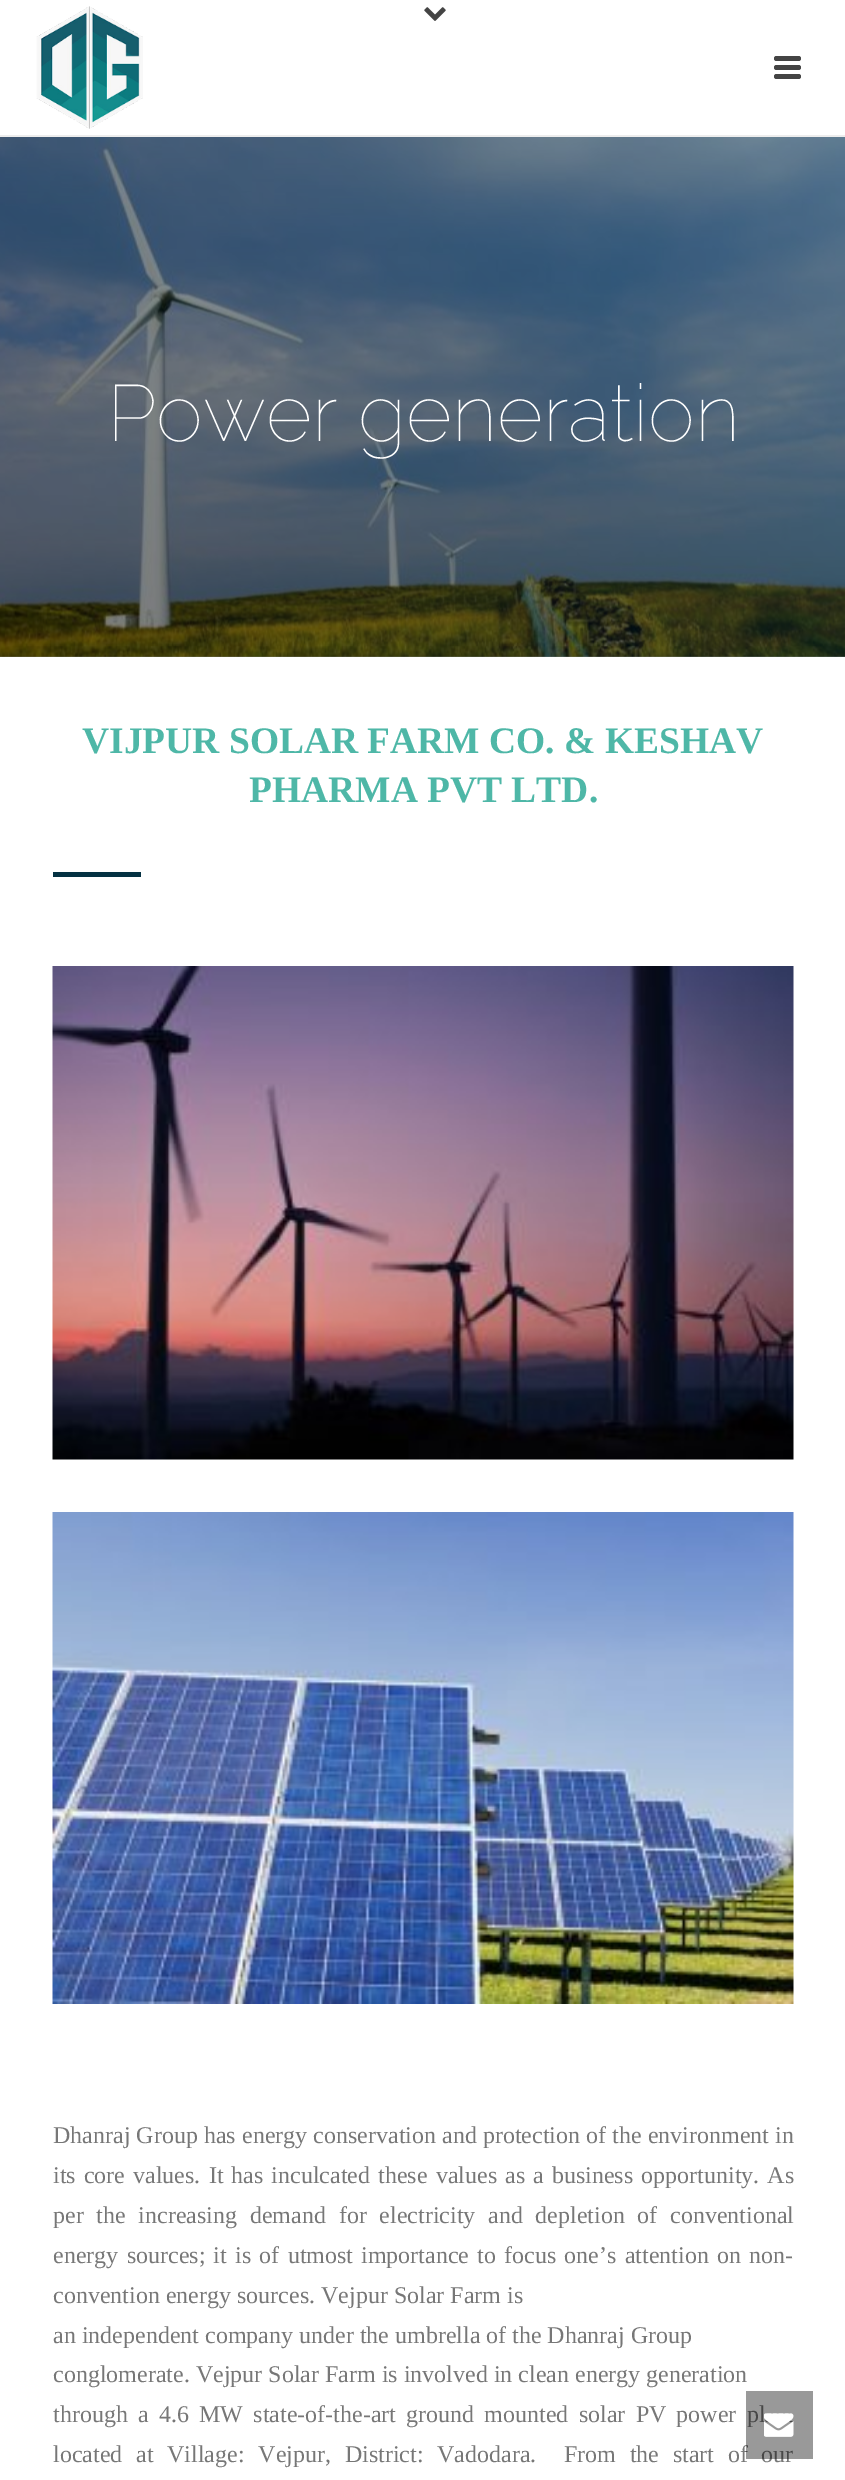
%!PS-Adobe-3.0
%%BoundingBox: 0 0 845 2480
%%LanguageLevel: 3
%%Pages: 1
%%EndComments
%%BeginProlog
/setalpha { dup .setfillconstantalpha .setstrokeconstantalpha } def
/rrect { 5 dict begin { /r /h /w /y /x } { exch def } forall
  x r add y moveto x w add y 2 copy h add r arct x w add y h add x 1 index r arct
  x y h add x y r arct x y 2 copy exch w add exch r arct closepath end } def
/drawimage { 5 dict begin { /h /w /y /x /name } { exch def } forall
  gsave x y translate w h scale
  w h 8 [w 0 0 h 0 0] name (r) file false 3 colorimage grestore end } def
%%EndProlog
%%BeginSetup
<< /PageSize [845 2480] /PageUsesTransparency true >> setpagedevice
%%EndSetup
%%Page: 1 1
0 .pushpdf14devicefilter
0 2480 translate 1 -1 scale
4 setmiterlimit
1 setgray
0 0 845 2480 rectfill
0.929 setgray
0 135 845 2 rectfill
(images/1.raw) 36 6 107 123 drawimage
0.267 setgray
774 56 27 5 2.5 rrect fill
774 65 27 5 2.5 rrect fill
774 74 27 5 2.5 rrect fill
(images/2.raw) 424 7 22 14 drawimage
(images/3.raw) 0 137 845 520 drawimage
0.5 setalpha
gsave newpath 0 137 moveto 845 137 lineto 845 657 lineto 0 657 lineto closepath clip newpath
<< /ShadingType 2 /ColorSpace /DeviceRGB /Coords [81 738 765 55] /Extend [true true] /Function << /FunctionType 2 /Domain [0 1] /C0 [0 0 0] /C1 [0.016 0.192 0.259] /N 1 >> >> shfill grestore
1 setalpha
0.016 0.192 0.259 setrgbcolor
53 872 88 5 rectfill
(images/4.raw) 52 966 742 494 drawimage
(images/5.raw) 52 1512 742 492 drawimage
/Raleway-Thin [79.5 0 0 -79.5 0 0] selectfont
1 setgray
107 441 moveto (Power generation) show
/LiberationSerif-Bold [37.5 0 0 -37.5 0 0] selectfont
0.306 0.718 0.655 setrgbcolor
82 753 moveto (VIJPUR SOLAR FARM CO. & KESHAV) show
249 802 moveto (PHARMA PVT LTD.) show
/LiberationSerif-Regular [24 0 0 -24 0 0] selectfont
0.467 setgray
53 2143 moveto 0.1 0 32 (Dhanraj Group has energy conservation and protection of the environment in) widthshow
53 2183 moveto 2.1 0 32 (its core values. It has inculcated these values as a business opportunity. As) widthshow
53 2223 moveto 6.75 0 32 (per the increasing demand for electricity and depletion of conventional) widthshow
53 2263 moveto 2.25 0 32 (energy sources; it is of utmost importance to focus one’s attention on non-) widthshow
53 2303 moveto (convention energy sources. Vejpur Solar Farm is) show
53 2343 moveto (an independent company under the umbrella of the Dhanraj Group) show
53 2382 moveto (conglomerate. Vejpur Solar Farm is involved in clean energy generation) show
53 2422 moveto 4.25 0 32 (through a 4.6 MW state-of-the-art ground mounted solar PV power pl) widthshow
53 2462 moveto 7.75 0 32 (located at Village: Vejpur, District: Vadodara.  From the start of our) widthshow
0.4 setalpha
0 setgray
746 2391 67 68 rectfill
1 setalpha
(images/6.raw) 764 2413 30 24 drawimage
.poppdf14devicefilter showpage
%%EOF
